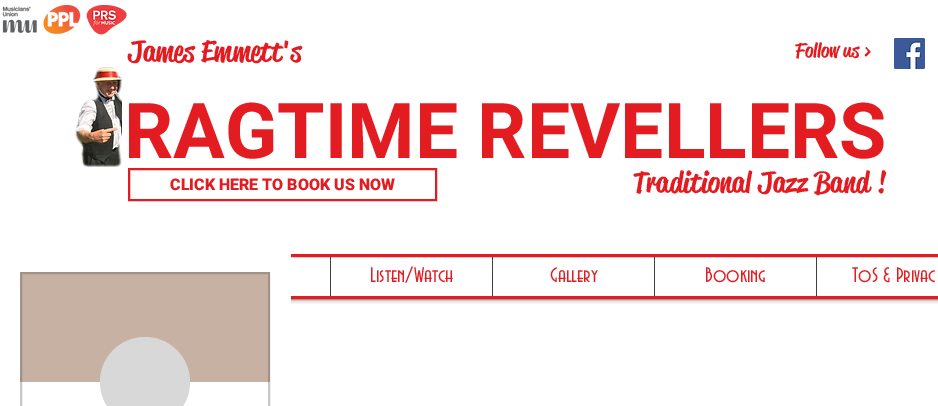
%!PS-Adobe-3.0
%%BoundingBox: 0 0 938 406
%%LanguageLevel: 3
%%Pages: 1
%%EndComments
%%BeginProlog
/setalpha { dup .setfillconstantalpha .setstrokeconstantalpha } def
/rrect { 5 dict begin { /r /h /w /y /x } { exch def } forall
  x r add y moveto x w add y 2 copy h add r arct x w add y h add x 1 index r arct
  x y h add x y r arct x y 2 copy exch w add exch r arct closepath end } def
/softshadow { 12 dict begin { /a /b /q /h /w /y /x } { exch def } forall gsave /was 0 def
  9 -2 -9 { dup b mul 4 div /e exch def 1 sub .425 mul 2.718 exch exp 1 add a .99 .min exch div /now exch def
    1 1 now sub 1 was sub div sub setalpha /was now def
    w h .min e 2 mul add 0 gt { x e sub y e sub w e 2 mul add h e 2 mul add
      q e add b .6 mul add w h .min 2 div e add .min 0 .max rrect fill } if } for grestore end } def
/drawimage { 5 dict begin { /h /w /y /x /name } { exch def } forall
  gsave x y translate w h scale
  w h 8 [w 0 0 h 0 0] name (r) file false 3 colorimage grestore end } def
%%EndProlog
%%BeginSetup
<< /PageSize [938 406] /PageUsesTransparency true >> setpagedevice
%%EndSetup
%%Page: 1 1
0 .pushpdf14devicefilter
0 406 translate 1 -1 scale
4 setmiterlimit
1 setgray
0 0 938 406 rectfill
gsave
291 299 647 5 rectclip
0 setgray
0 0 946 299 0 2.5 0.7 softshadow
grestore
(images/1.raw) 2 5 125 30 drawimage
(images/2.raw) 894 38 31 31 drawimage
(images/3.raw) 74 67 48 100 drawimage
0.886 0.11 0.129 setrgbcolor
2 setlinewidth
129 169 307 31 rectstroke
3 setlinewidth
2.5 255.5 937 42 rectstroke
0.255 setgray
330 257 1 39 rectfill
492 257 1 39 rectfill
654 257 1 39 rectfill
816 257 1 39 rectfill
1 setgray
0 254 291 50 rectfill
0.776 0.694 0.639 setrgbcolor
20 272 250 110 rectfill
0.31 setalpha
0.31 0.306 0.29 setrgbcolor
2 setlinewidth
21 273 248 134 rectstroke
1 setalpha
0.847 setgray
newpath 145 382 45 0 360 arc closepath fill
/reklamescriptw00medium-Medium [29 0 0 -29 0 0] selectfont
0.886 0.11 0.129 setrgbcolor
128 61 moveto (James Emmett's) show
/reklamescriptw00medium-Medium [20 0 0 -20 0 0] selectfont
795 57 moveto (Follow us >) show
/Roboto-Bold [77 0 0 -77 0 0] selectfont
124 158 moveto (RAGTIME REVELLERS) show
/Roboto-Black [16 0 0 -16 0 0] selectfont
170 190 moveto (CLICK HERE TO BOOK US NOW) show
/reklamescriptw00medium-Medium [29 0 0 -29 0 0] selectfont
633 192 moveto (Traditional Jazz Band !) show
/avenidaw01-Regular [22 0 0 -22 0 0] selectfont
370 282 moveto (Listen/Watch) show
550 282 moveto (Gallery) show
705 282 moveto (Booking) show
852 282 moveto (ToS & Privac) show
.poppdf14devicefilter showpage
%%EOF
